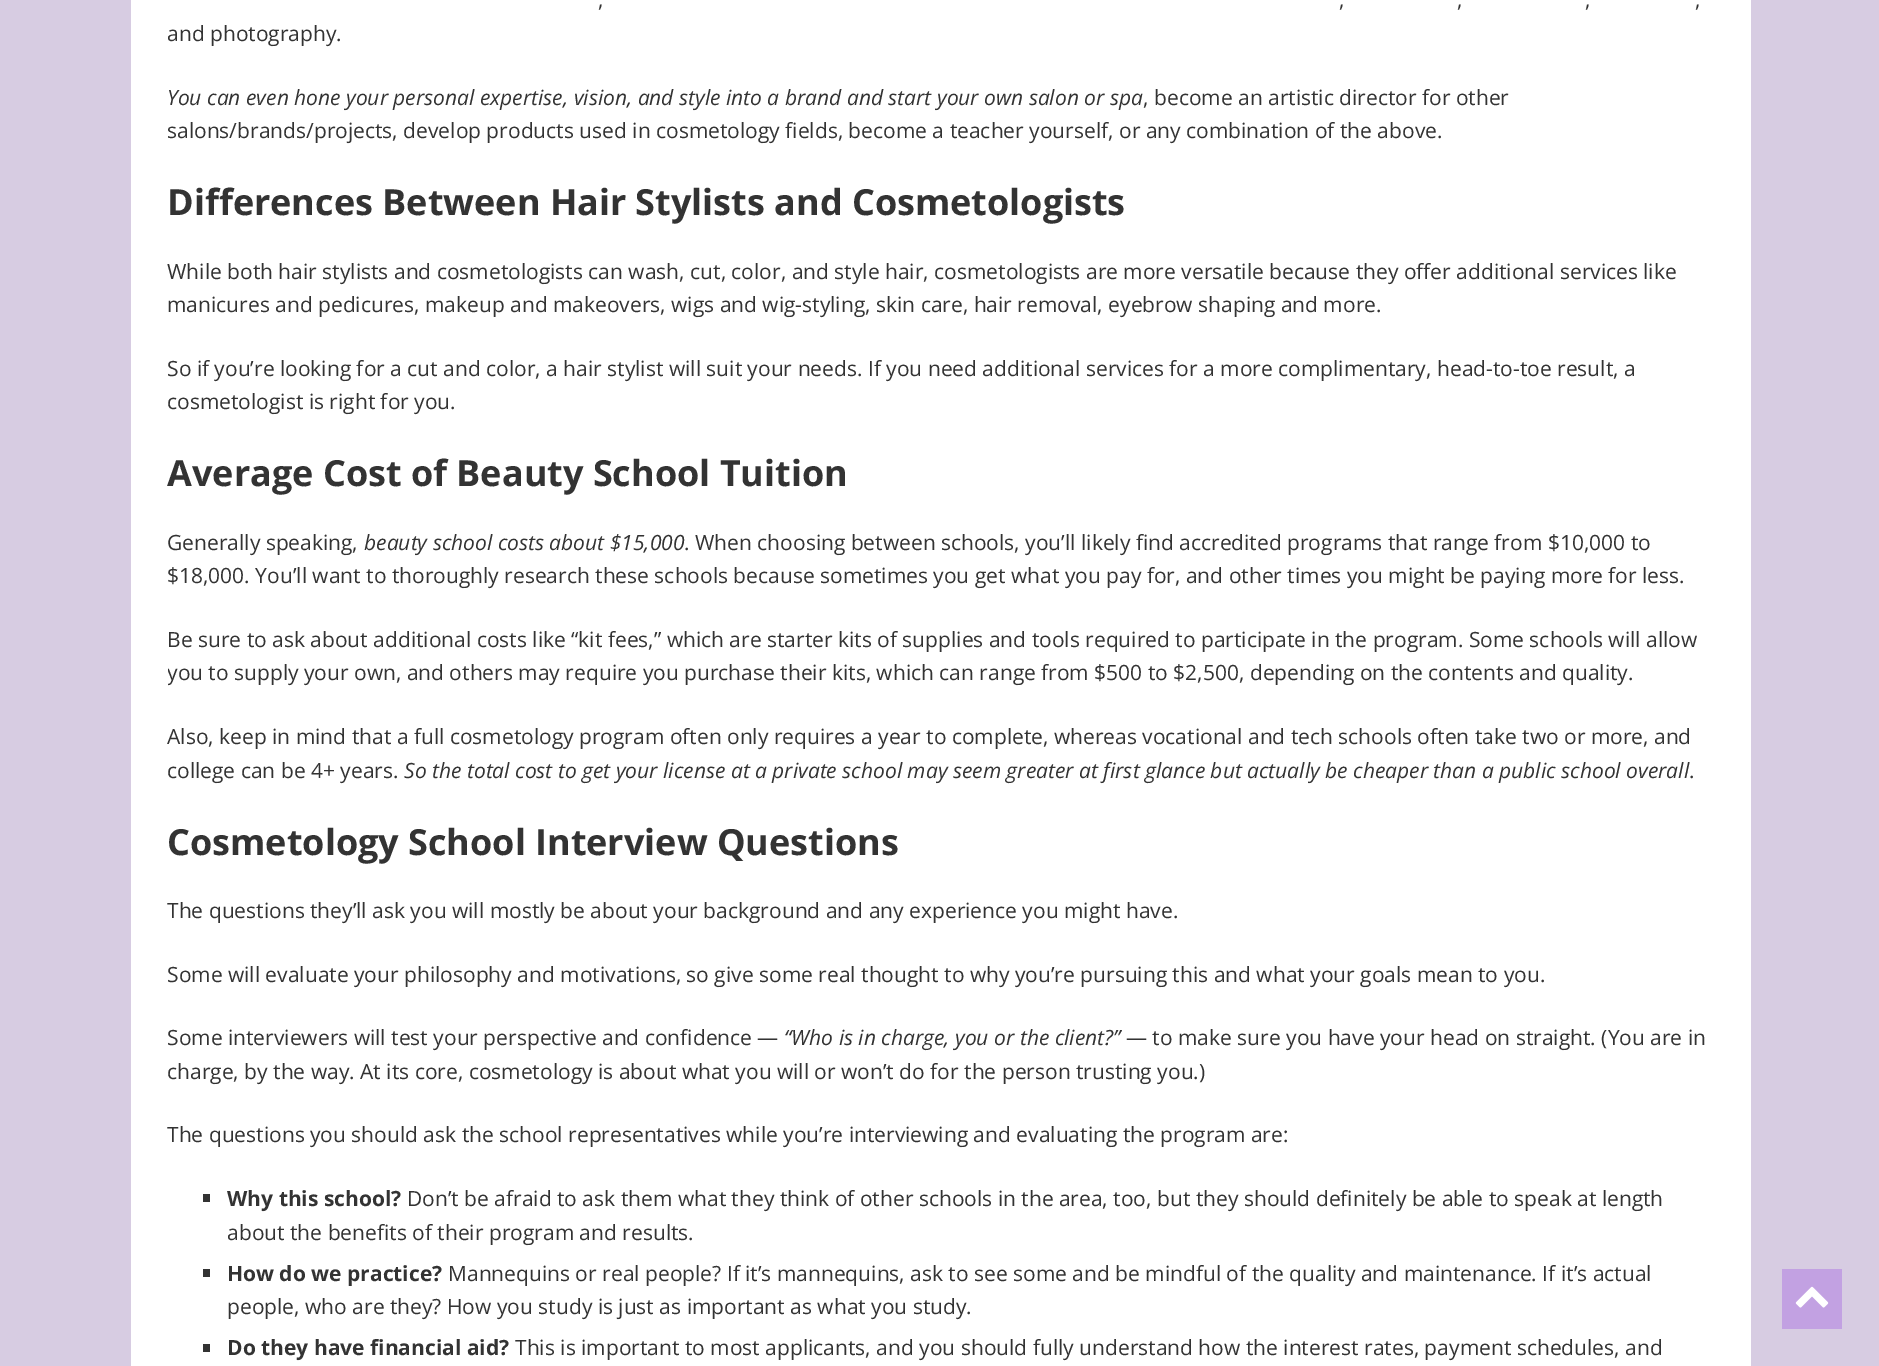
%!PS-Adobe-3.0
%%BoundingBox: 0 0 1879 1366
%%LanguageLevel: 3
%%Pages: 1
%%EndComments
%%BeginProlog
/drawimage { 5 dict begin { /h /w /y /x /name } { exch def } forall
  gsave x y translate w h scale
  w h 8 [w 0 0 h 0 0] name (r) file false 3 colorimage grestore end } def
%%EndProlog
%%BeginSetup
<< /PageSize [1879 1366] >> setpagedevice
%%EndSetup
%%Page: 1 1
0 1366 translate 1 -1 scale
4 setmiterlimit
0.843 0.8 0.886 setrgbcolor
0 0 1879 1366 rectfill
1 setgray
131 0 1620 1366 rectfill
0.2 setgray
203 1194 7 8 rectfill
203 1269 7 8 rectfill
203 1344 7 8 rectfill
0.761 0.631 0.886 setrgbcolor
1782 1269 60 60 rectfill
(images/1.raw) 1795 1286 34 22 drawimage
/OpenSans-Regular [21 0 0 -21 0 0] selectfont
0.2 setgray
598 7 moveto (,) show
1339 7 moveto (,) show
1457 7 moveto (,) show
1585 7 moveto (,) show
1695 7 moveto (,) show
167 41 moveto (and photography.) show
/OpenSans-Italic [21 0 0 -21 0 0] selectfont
167 105 moveto (You can even hone your personal expertise, vision, and style into a brand and start your own salon or spa) show
/OpenSans-Regular [21 0 0 -21 0 0] selectfont
1143 105 moveto (, become an artistic director for other) show
167 138 moveto (salons/brands/projects, develop products used in cosmetology fields, become a teacher yourself, or any combination of the above.) show
/OpenSans-Bold [36 0 0 -36 0 0] selectfont
167 215 moveto (Differences Between Hair Stylists and Cosmetologists) show
/OpenSans-Regular [21 0 0 -21 0 0] selectfont
167 279 moveto (While both hair stylists and cosmetologists can wash, cut, color, and style hair, cosmetologists are more versatile because they offer additional services like) show
167 312 moveto (manicures and pedicures, makeup and makeovers, wigs and wig-styling, skin care, hair removal, eyebrow shaping and more.) show
167 376 moveto (So if you’re looking for a cut and color, a hair stylist will suit your needs. If you need additional services for a more complimentary, head-to-toe result, a) show
167 409 moveto (cosmetologist is right for you.) show
/OpenSans-Bold [36 0 0 -36 0 0] selectfont
167 486 moveto (Average Cost of Beauty School Tuition) show
/OpenSans-Regular [21 0 0 -21 0 0] selectfont
167 550 moveto (Generally speaking,) show
/OpenSans-Italic [21 0 0 -21 0 0] selectfont
364 550 moveto (beauty school costs about $15,000) show
/OpenSans-Regular [21 0 0 -21 0 0] selectfont
684 550 moveto (. When choosing between schools, you’ll likely find accredited programs that range from $10,000 to) show
167 583 moveto ($18,000. You’ll want to thoroughly research these schools because sometimes you get what you pay for, and other times you might be paying more for less.) show
167 647 moveto (Be sure to ask about additional costs like “kit fees,” which are starter kits of supplies and tools required to participate in the program. Some schools will allow) show
gsave
168 0 1545 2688 rectclip
167 680 moveto (you to supply your own, and others may require you purchase their kits, which can range from $500 to $2,500, depending on the contents and quality.) show
grestore
167 744 moveto (Also, keep in mind that a full cosmetology program often only requires a year to complete, whereas vocational and tech schools often take two or more, and) show
167 778 moveto (college can be 4+ years.) show
/OpenSans-Italic [21 0 0 -21 0 0] selectfont
404 778 moveto (So the total cost to get your license at a private school may seem greater at first glance but actually be cheaper than a public school overall) show
/OpenSans-Regular [21 0 0 -21 0 0] selectfont
1689 778 moveto (.) show
/OpenSans-Bold [36 0 0 -36 0 0] selectfont
167 855 moveto (Cosmetology School Interview Questions) show
/OpenSans-Regular [21 0 0 -21 0 0] selectfont
167 918 moveto (The questions they’ll ask you will mostly be about your background and any experience you might have.) show
167 982 moveto (Some will evaluate your philosophy and motivations, so give some real thought to why you’re pursuing this and what your goals mean to you.) show
167 1045 moveto (Some interviewers will test your perspective and confidence —) show
/OpenSans-Italic [21 0 0 -21 0 0] selectfont
784 1045 moveto (“Who is in charge, you or the client?”) show
/OpenSans-Regular [21 0 0 -21 0 0] selectfont
1126 1045 moveto (— to make sure you have your head on straight. \(You are in) show
167 1079 moveto (charge, by the way. At its core, cosmetology is about what you will or won’t do for the person trusting you.\)) show
167 1142 moveto (The questions you should ask the school representatives while you’re interviewing and evaluating the program are:) show
/OpenSans-Bold [21 0 0 -21 0 0] selectfont
227 1206 moveto (Why this school?) show
/OpenSans-Regular [21 0 0 -21 0 0] selectfont
407 1206 moveto (Don’t be afraid to ask them what they think of other schools in the area, too, but they should definitely be able to speak at length) show
227 1240 moveto (about the benefits of their program and results.) show
/OpenSans-Bold [21 0 0 -21 0 0] selectfont
227 1281 moveto (How do we practice?) show
/OpenSans-Regular [21 0 0 -21 0 0] selectfont
448 1281 moveto (Mannequins or real people? If it’s mannequins, ask to see some and be mindful of the quality and maintenance. If it’s actual) show
227 1314 moveto (people, who are they? How you study is just as important as what you study.) show
/OpenSans-Bold [21 0 0 -21 0 0] selectfont
227 1355 moveto (Do they have financial aid?) show
/OpenSans-Regular [21 0 0 -21 0 0] selectfont
515 1355 moveto (This is important to most applicants, and you should fully understand how the interest rates, payment schedules, and) show
showpage
%%EOF
